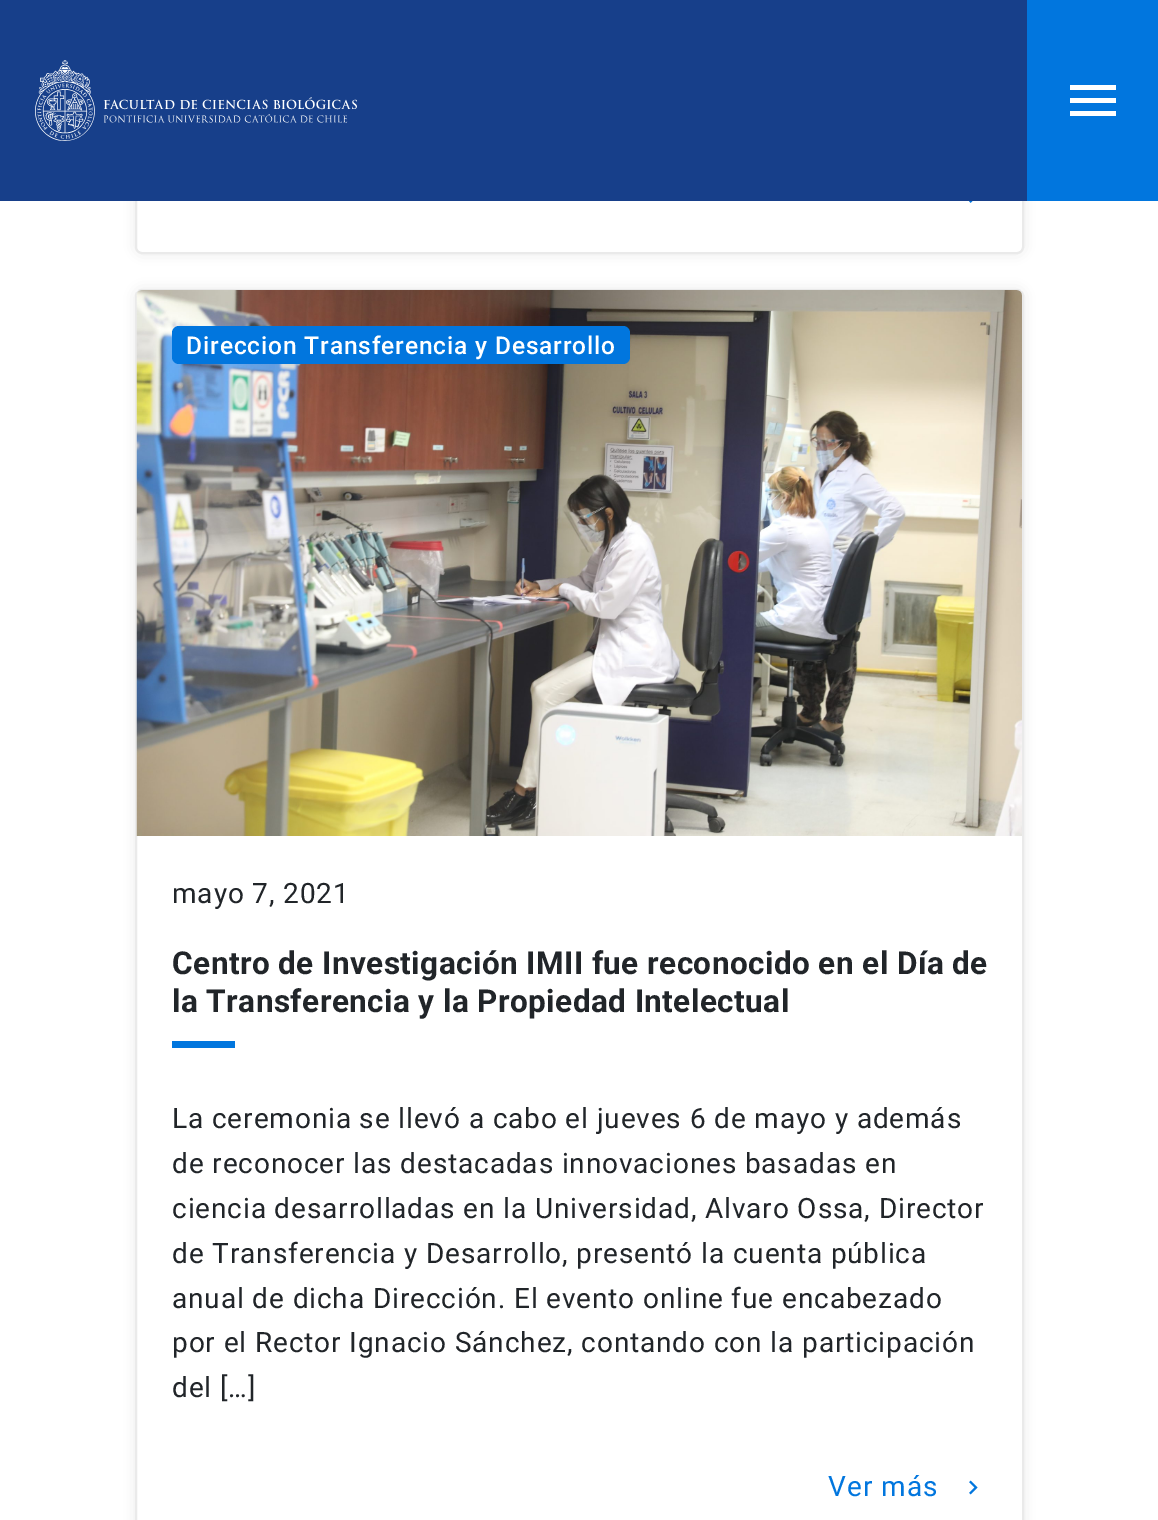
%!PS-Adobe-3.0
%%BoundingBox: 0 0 1158 1520
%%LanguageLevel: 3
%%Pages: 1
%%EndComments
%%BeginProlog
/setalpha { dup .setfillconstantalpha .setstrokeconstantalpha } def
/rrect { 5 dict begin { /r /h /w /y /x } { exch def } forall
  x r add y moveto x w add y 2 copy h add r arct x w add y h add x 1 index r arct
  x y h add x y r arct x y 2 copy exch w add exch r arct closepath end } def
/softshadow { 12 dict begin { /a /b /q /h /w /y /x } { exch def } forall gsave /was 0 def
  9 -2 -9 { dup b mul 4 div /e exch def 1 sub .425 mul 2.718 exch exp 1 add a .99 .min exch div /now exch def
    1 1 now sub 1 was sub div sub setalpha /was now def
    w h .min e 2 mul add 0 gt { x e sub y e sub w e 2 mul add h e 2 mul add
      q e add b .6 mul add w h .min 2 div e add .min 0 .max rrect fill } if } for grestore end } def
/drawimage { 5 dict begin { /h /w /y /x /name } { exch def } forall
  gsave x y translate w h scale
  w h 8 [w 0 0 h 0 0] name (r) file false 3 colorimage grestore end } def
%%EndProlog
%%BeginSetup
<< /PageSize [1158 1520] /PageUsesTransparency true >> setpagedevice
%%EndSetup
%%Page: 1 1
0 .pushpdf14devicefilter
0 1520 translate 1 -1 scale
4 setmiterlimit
1 setgray
0 0 1158 1520 rectfill
0.533 setgray
135 -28 889 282 7 7 0.18 softshadow
1 setgray
136 -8 887 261 6 rrect gsave fill grestore
0.918 setgray
2 setlinewidth
stroke
0.09 0.247 0.541 setrgbcolor
0 0 1027 201 rectfill
(images/1.raw) 35 60 322 81 drawimage
0.004 0.463 0.871 setrgbcolor
1027 0 131 201 rectfill
1 setgray
newpath 1070 85 moveto 1116 85 lineto 1116 90 lineto 1070 90 lineto closepath 1070 103 moveto 1070 98 lineto 1116 98 lineto 1116 103 lineto closepath 1070 116 moveto 1070 111 lineto 1116 111 lineto 1116 116 lineto closepath fill
(images/2.raw) 969 201 4 2 drawimage
0.533 setgray
135 289 889 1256 7 7 0.18 softshadow
1 setgray
136 290 887 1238 6 rrect gsave fill grestore
0.918 setgray
stroke
(images/3.raw) 136 290 886 546 drawimage
0.004 0.463 0.871 setrgbcolor
172 326 458 38 7 rrect fill
172 1041 63 7 rectfill
(images/4.raw) 969 1480 9 15 drawimage
/Roboto-Medium [24.5 0 0 -24.5 0 0] selectfont
1 setgray
186 354 moveto 0.88 0 (Direccion Transferencia y Desarrollo) ashow
/Roboto-Regular [28 0 0 -28 0 0] selectfont
0.129 0.145 0.161 setrgbcolor
172 903 moveto 0.88 0 (mayo 7, 2021) ashow
/Roboto-Bold [31.5 0 0 -31.5 0 0] selectfont
172 974 moveto 0.45 0 (Centro de Investigación IMII fue reconocido en el Día de) ashow
172 1012 moveto 0.45 0 (la Transferencia y la Propiedad Intelectual) ashow
/Roboto-Regular [28 0 0 -28 0 0] selectfont
172 1128 moveto 0.88 0 (La ceremonia se llevó a cabo el jueves 6 de mayo y además) ashow
172 1173 moveto 0.88 0 (de reconocer las destacadas innovaciones basadas en) ashow
172 1218 moveto 0.88 0 (ciencia desarrolladas en la Universidad, Alvaro Ossa, Director) ashow
172 1263 moveto 0.88 0 (de Transferencia y Desarrollo, presentó la cuenta pública) ashow
172 1308 moveto 0.88 0 (anual de dicha Dirección. El evento online fue encabezado) ashow
172 1352 moveto 0.88 0 (por el Rector Ignacio Sánchez, contando con la participación) ashow
172 1397 moveto 0.88 0 (del […]) ashow
0.004 0.463 0.871 setrgbcolor
828 1496 moveto 1 0 (Ver más) ashow
.poppdf14devicefilter showpage
%%EOF
